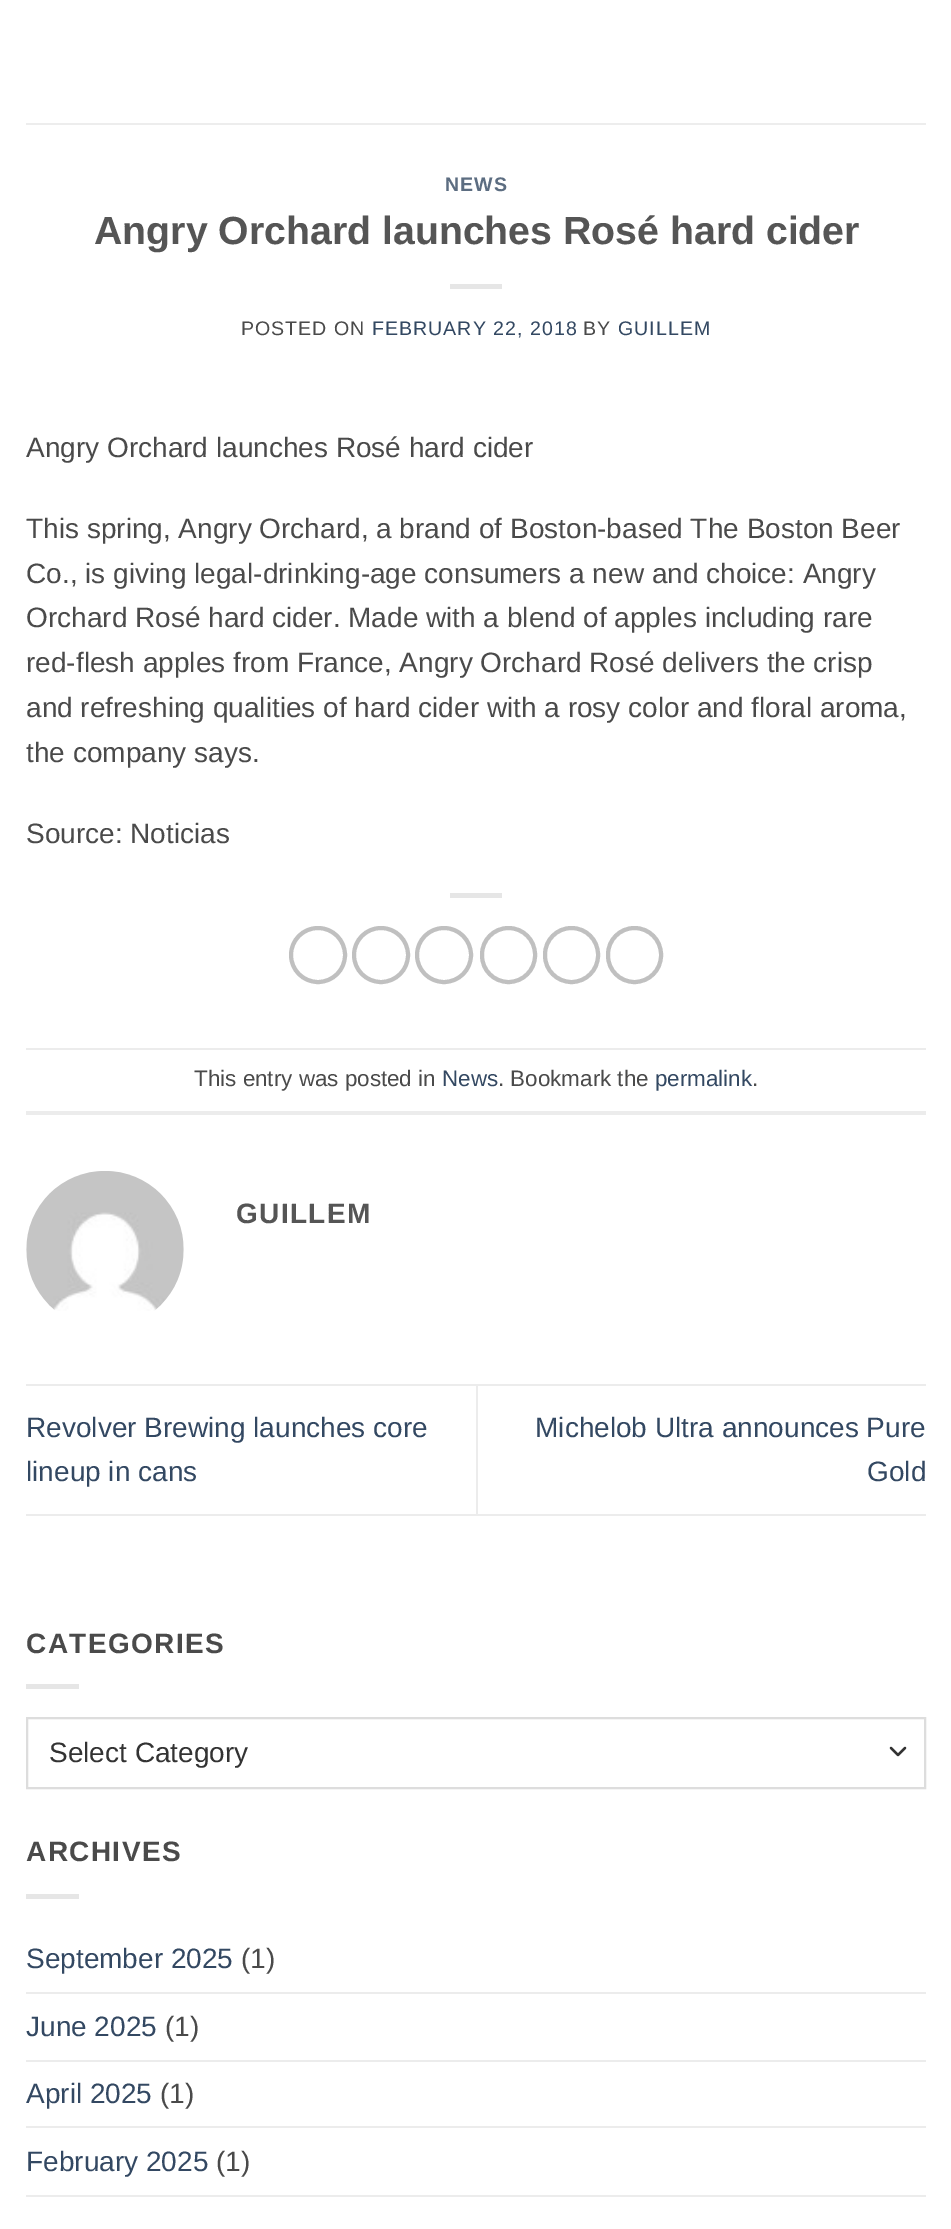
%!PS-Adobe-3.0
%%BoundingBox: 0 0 951 2229
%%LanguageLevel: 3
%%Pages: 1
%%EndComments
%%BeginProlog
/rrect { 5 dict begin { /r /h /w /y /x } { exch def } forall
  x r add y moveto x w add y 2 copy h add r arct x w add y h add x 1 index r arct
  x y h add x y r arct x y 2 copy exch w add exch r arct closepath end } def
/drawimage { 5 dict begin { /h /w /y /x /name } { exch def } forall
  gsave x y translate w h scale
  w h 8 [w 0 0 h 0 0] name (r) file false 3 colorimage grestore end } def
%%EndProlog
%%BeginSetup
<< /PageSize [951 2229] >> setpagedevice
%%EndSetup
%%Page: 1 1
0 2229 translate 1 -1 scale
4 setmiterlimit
1 setgray
0 0 951 2229 rectfill
0.929 setgray
26 123 900 2 rectfill
0.902 setgray
450 284 52 5 rectfill
450 893 52 5 rectfill
0.753 setgray
4 setlinewidth
newpath 318 955 27 0 360 arc closepath stroke
newpath 381 955 27 0 360 arc closepath stroke
newpath 444 955 27 0 360 arc closepath stroke
482 928 53 54 26.5 rrect stroke
545 928 53 54 26.5 rrect stroke
608 928 53 54 26.5 rrect stroke
0.925 setgray
26 1048 900 2 rectfill
26 1111 900 4 rectfill
(images/1.raw) 26 1171 158 140 drawimage
26 1384 900 2 rectfill
26 1514 900 2 rectfill
476 1386 2 128 rectfill
0.902 setgray
26 1684 53 5 rectfill
0.2 setgray
2.3 setlinewidth
1 setlinecap
1 setlinejoin
newpath 891 1748 moveto 898 1755 lineto 905 1748 lineto stroke
0.867 setgray
2 setlinewidth
0 setlinecap
0 setlinejoin
27 1718 898 70 rectstroke
0.902 setgray
26 1894 53 5 rectfill
0.925 setgray
26 1992 900 2 rectfill
26 2060 900 2 rectfill
26 2126 900 2 rectfill
26 2195 900 2 rectfill
/LiberationSans-Bold [19.6 0 0 -19.6 0 0] selectfont
0.361 0.427 0.506 setrgbcolor
445 191 moveto 1 0 (NEWS) ashow
/LiberationSans-Bold [39.25 0 0 -39.25 0 0] selectfont
0.333 setgray
94 244 moveto (Angry Orchard launches Rosé hard cider) show
/LiberationSans-Regular [19.6 0 0 -19.6 0 0] selectfont
0.29 setgray
241 335 moveto 1 0 (POSTED ON) ashow
0.2 0.282 0.384 setrgbcolor
372 335 moveto 1 0 (FEBRUARY 22, 2018) ashow
0.29 setgray
583 335 moveto 1 0 (BY) ashow
0.2 0.282 0.384 setrgbcolor
618 335 moveto 1 0 (GUILLEM) ashow
/LiberationSans-Regular [28 0 0 -28 0 0] selectfont
0.29 setgray
26 457 moveto (Angry Orchard launches Rosé hard cider) show
26 538 moveto (This spring, Angry Orchard, a brand of Boston-based The Boston Beer) show
26 583 moveto (Co., is giving legal-drinking-age consumers a new and choice: Angry) show
26 627 moveto (Orchard Rosé hard cider. Made with a blend of apples including rare) show
26 672 moveto (red-flesh apples from France, Angry Orchard Rosé delivers the crisp) show
26 717 moveto (and refreshing qualities of hard cider with a rosy color and floral aroma,) show
26 762 moveto (the company says.) show
26 843 moveto (Source: Noticias) show
/LiberationSans-Regular [22.4 0 0 -22.4 0 0] selectfont
194 1086 moveto (This entry was posted in) show
0.2 0.282 0.384 setrgbcolor
442 1086 moveto (News) show
0.29 setgray
498 1086 moveto (. Bookmark the) show
0.2 0.282 0.384 setrgbcolor
655 1086 moveto (permalink) show
0.29 setgray
752 1086 moveto (.) show
/LiberationSans-Bold [28 0 0 -28 0 0] selectfont
0.333 setgray
236 1223 moveto 1.4 0 (GUILLEM) ashow
/LiberationSans-Regular [28 0 0 -28 0 0] selectfont
0.2 0.282 0.384 setrgbcolor
26 1437 moveto (Revolver Brewing launches core) show
26 1481 moveto (lineup in cans) show
535 1437 moveto (Michelob Ultra announces Pure) show
867 1481 moveto (Gold) show
/LiberationSans-Bold [28 0 0 -28 0 0] selectfont
0.29 setgray
26 1653 moveto 1.4 0 (CATEGORIES) ashow
/LiberationSans-Regular [28 0 0 -28 0 0] selectfont
0.2 setgray
49 1762 moveto (Select Category) show
/LiberationSans-Bold [28 0 0 -28 0 0] selectfont
0.29 setgray
26 1861 moveto 1.4 0 (ARCHIVES) ashow
/LiberationSans-Regular [28 0 0 -28 0 0] selectfont
0.2 0.282 0.384 setrgbcolor
26 1968 moveto (September 2025) show
0.29 setgray
241 1968 moveto (\(1\)) show
0.2 0.282 0.384 setrgbcolor
26 2036 moveto (June 2025) show
0.29 setgray
165 2036 moveto (\(1\)) show
0.2 0.282 0.384 setrgbcolor
26 2103 moveto (April 2025) show
0.29 setgray
160 2103 moveto (\(1\)) show
0.2 0.282 0.384 setrgbcolor
26 2171 moveto (February 2025) show
0.29 setgray
216 2171 moveto (\(1\)) show
showpage
%%EOF
